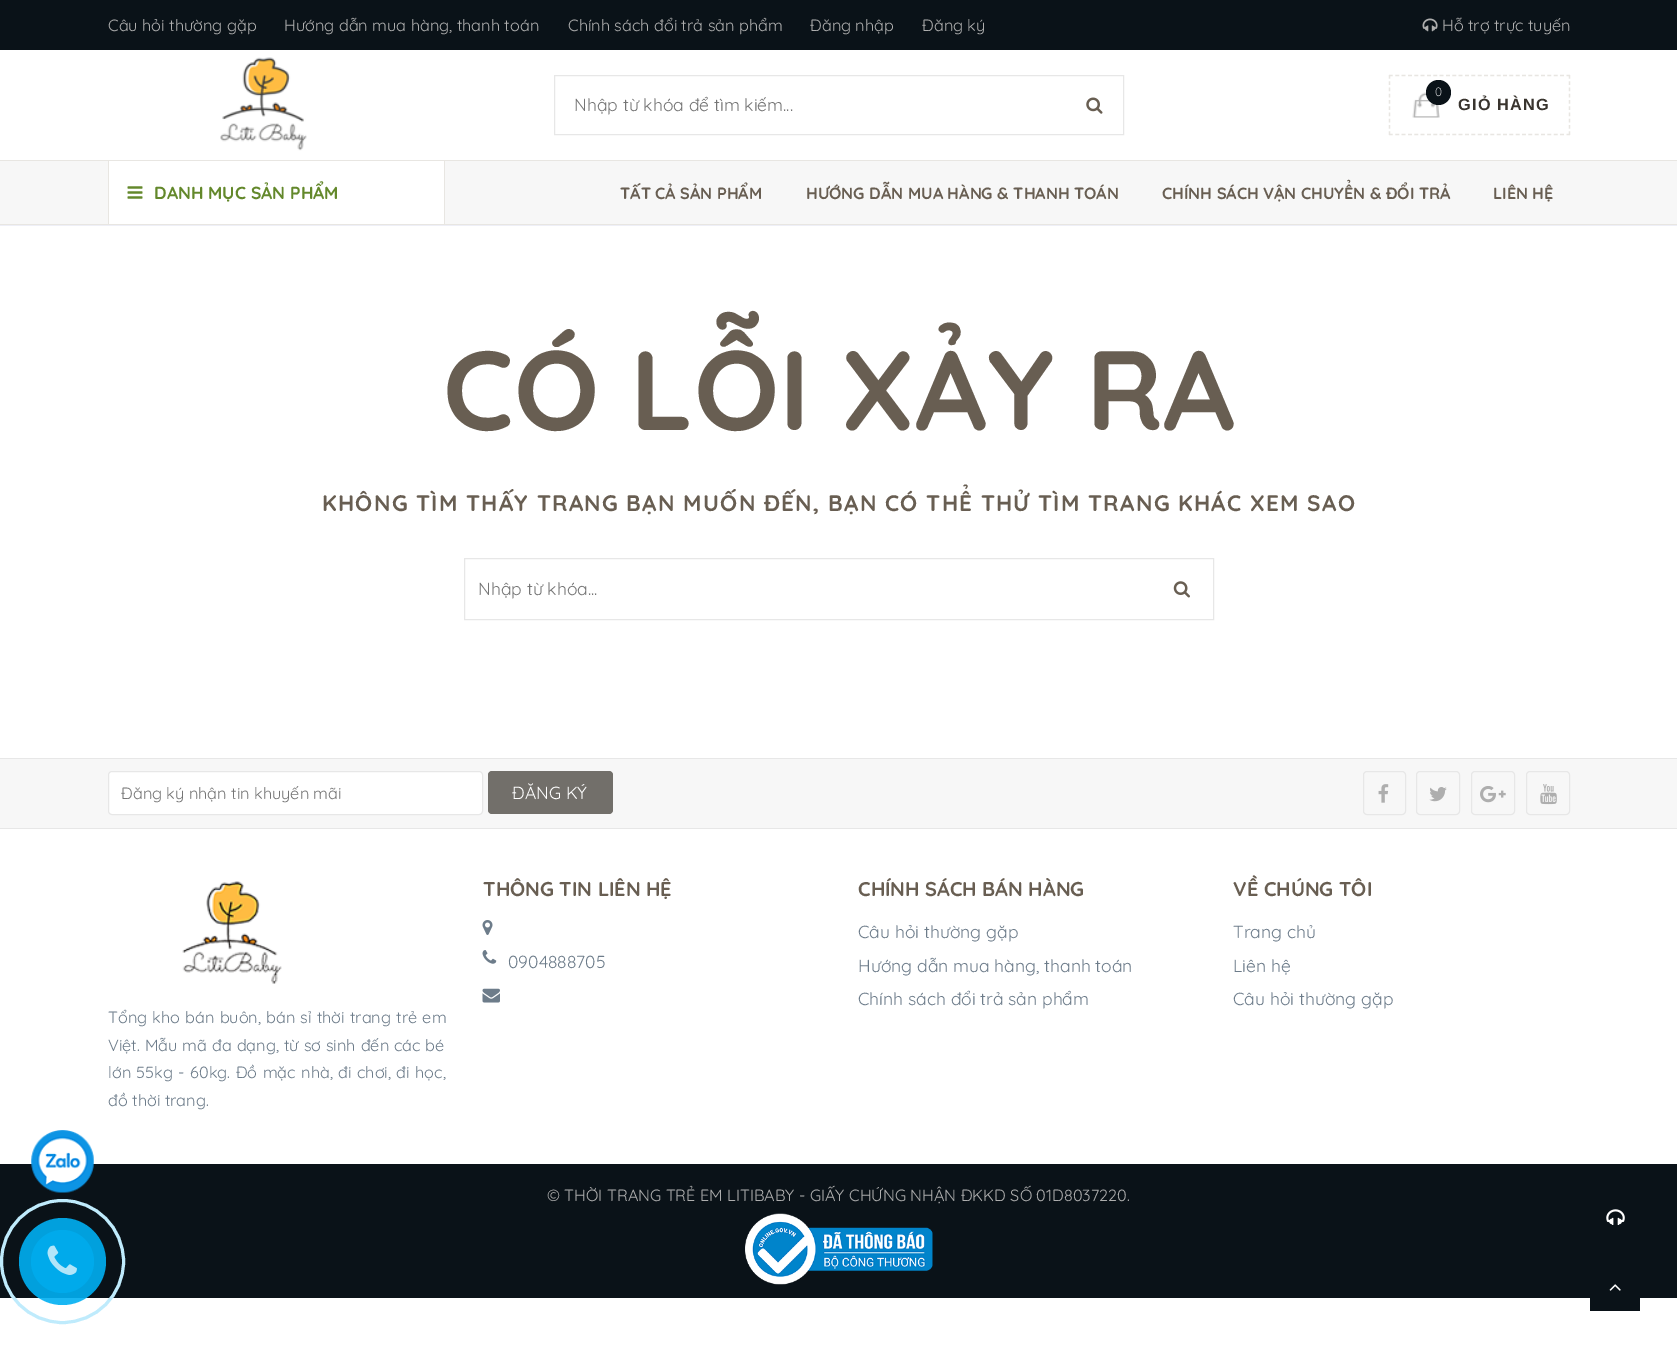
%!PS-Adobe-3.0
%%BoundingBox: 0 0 1677 1348
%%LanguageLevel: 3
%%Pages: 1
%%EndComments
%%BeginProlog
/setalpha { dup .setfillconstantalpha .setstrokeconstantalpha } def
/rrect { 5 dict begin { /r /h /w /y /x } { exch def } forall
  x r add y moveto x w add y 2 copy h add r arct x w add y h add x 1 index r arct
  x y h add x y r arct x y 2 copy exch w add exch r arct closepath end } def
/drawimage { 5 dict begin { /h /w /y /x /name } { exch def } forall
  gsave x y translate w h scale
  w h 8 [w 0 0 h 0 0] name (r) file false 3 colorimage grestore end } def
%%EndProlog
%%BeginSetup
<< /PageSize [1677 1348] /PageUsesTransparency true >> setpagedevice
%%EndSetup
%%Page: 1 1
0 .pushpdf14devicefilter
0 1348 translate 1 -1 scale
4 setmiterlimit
1 setgray
0 0 1677 1348 rectfill
0.039 0.071 0.094 setrgbcolor
0 0 1677 50 rectfill
(images/1.raw) 1422 18 16 14 drawimage
(images/2.raw) 220 57 87 94 drawimage
0.906 setgray
554.5 75.5 569 59 rectstroke
(images/3.raw) 1086 97 17 17 drawimage
0.91 0.902 0.886 setrgbcolor
1.2 setlinewidth
[3.75 2.59] 0 setdash
newpath 1389 75.5 moveto 1570 75.5 lineto stroke
[3.75 2.5] 0 setdash
newpath 1569.5 75 moveto 1569.5 135 lineto stroke
[3.75 2.59] 0 setdash
newpath 1389 134.5 moveto 1570 134.5 lineto stroke
[3.75 2.5] 0 setdash
newpath 1389.5 75 moveto 1389.5 135 lineto stroke
(images/4.raw) 1412 92 28 26 drawimage
0.039 0.071 0.094 setrgbcolor
newpath 1438.5 92.5 12.5 0 360 arc closepath fill
0.969 setgray
0 161 1677 63 rectfill
0.91 0.902 0.886 setrgbcolor
0 160 1677 1 rectfill
0 224 1677 1 rectfill
1 setgray
109 161 335 63 rectfill
0.91 0.902 0.886 setrgbcolor
444 161 1 63 rectfill
108 161 1 63 rectfill
(images/5.raw) 127 186 16 13 drawimage
0.933 0.937 0.969 setrgbcolor
0 225 1677 1 rectfill
0.906 setgray
1 setlinewidth
[] 0 setdash
464.5 558.5 749 61 rectstroke
(images/6.raw) 1173 581 17 17 drawimage
0 758 1677 1 rectfill
0.969 setgray
0 759 1677 69 rectfill
0.906 setgray
0 828 1677 1 rectfill
1 setgray
108.5 771.5 374 43 3.5 rrect gsave fill grestore
0.906 setgray
stroke
0.447 0.435 0.416 setrgbcolor
488 771 125 43 4 rrect fill
0.906 setgray
1363.5 771.5 42 43 3.5 rrect stroke
(images/7.raw) 1378 784 11 19 drawimage
1416.5 771.5 43 43 3.5 rrect stroke
(images/8.raw) 1429 787 18 15 drawimage
1471.5 771.5 43 43 3.5 rrect stroke
(images/9.raw) 1480 786 26 17 drawimage
1526.5 771.5 43 43 3.5 rrect stroke
(images/10.raw) 1540 784 17 21 drawimage
(images/11.raw) 482 920 11 15 drawimage
(images/12.raw) 482 950 15 14 drawimage
(images/13.raw) 482 988 18 15 drawimage
(images/14.raw) 182 881 100 103 drawimage
0.039 0.071 0.094 setrgbcolor
0 1164 1677 134 rectfill
(images/15.raw) 31 1130 63 63 drawimage
(images/16.raw) 745 1213 188 72 drawimage
0.749 0.922 0.988 setrgbcolor
3 setlinewidth
newpath 62.5 1261.5 61 0 360 arc closepath stroke
0.9 setalpha
0 0.686 0.949 setrgbcolor
newpath 62.5 1261.5 43.5 0 360 arc closepath fill
1 setalpha
0 0.667 0.922 setrgbcolor
newpath 62.5 1261.5 31.5 0 360 arc closepath fill
(images/17.raw) 47 1245 30 30 drawimage
(images/18.raw) 1606 1209 19 16 drawimage
0.039 0.071 0.094 setrgbcolor
1590 1298 50 13 rectfill
(images/19.raw) 1609 1284 12 7 drawimage
/Quicksand-Regular [16.25 0 0 -16.25 0 0] selectfont
0.682 setgray
108 31 moveto (Câu hỏi thường gặp) show
284 31 moveto (Hướng dẫn mua hàng, thanh toán) show
568 31 moveto (Chính sách đổi trả sản phẩm) show
810 31 moveto (Đăng nhập) show
922 31 moveto (Đăng ký) show
1442 31 moveto (Hỗ trợ trực tuyến) show
/Quicksand-Regular [17.5 0 0 -17.5 0 0] selectfont
0.459 setgray
574 111 moveto (Nhập từ khóa để tìm kiếm...) show
/Quicksand-Light [12 0 0 -12 0 0] selectfont
1 setgray
1435 96 moveto (0) show
/LiberationSans-Bold [16.25 0 0 -16.25 0 0] selectfont
0.224 0.204 0.18 setrgbcolor
1458 110 moveto 1.25 0 (GIỎ HÀNG) ashow
/Quicksand-Bold [17.5 0 0 -17.5 0 0] selectfont
0.388 0.533 0.169 setrgbcolor
154 199 moveto (DANH MỤC SẢN PHẨM) show
/Quicksand-Bold [16.25 0 0 -16.25 0 0] selectfont
0.408 0.369 0.322 setrgbcolor
620 199 moveto (TẤT CẢ SẢN PHẨM) show
806 199 moveto (HƯỚNG DẪN MUA HÀNG & THANH TOÁN) show
1162 199 moveto (CHÍNH SÁCH VẬN CHUYỂN & ĐỔI TRẢ) show
1493 199 moveto (LIÊN HỆ) show
/Quicksand-Bold [112.5 0 0 -112.5 0 0] selectfont
443 430 moveto (CÓ LỖI XẢY RA) show
/Quicksand-Bold [22.5 0 0 -22.5 0 0] selectfont
322 511 moveto 1.25 0 (KHÔNG TÌM THẤY TRANG BẠN MUỐN ĐẾN, BẠN CÓ THỂ THỬ TÌM TRANG KHÁC XEM SAO) ashow
/Quicksand-Regular [17.5 0 0 -17.5 0 0] selectfont
0.459 setgray
478 595 moveto (Nhập từ khóa...) show
/Quicksand-Regular [16.25 0 0 -16.25 0 0] selectfont
121 799 moveto (Đăng ký nhận tin khuyến mãi) show
/Quicksand-Regular [17.5 0 0 -17.5 0 0] selectfont
1 setgray
512 799 moveto (ĐĂNG KÝ) show
/Quicksand-Bold [20 0 0 -20 0 0] selectfont
0.408 0.369 0.322 setrgbcolor
483 896 moveto (THÔNG TIN LIÊN HỆ) show
/Quicksand-Regular [17.5 0 0 -17.5 0 0] selectfont
0.427 0.486 0.541 setrgbcolor
508 968 moveto (0904888705) show
/Quicksand-Regular [16.25 0 0 -16.25 0 0] selectfont
108 1023 moveto 0.75 0 32 (Tổng kho bán buôn, bán sỉ thời trang trẻ em) widthshow
108 1051 moveto 0.5 0 32 (Việt. Mẫu mã đa dạng, từ sơ sinh đến các bé) widthshow
108 1078 moveto 1 0 32 (lớn 55kg - 60kg. Đồ mặc nhà, đi chơi, đi học,) widthshow
108 1106 moveto (đồ thời trang.) show
/Quicksand-Bold [20 0 0 -20 0 0] selectfont
0.408 0.369 0.322 setrgbcolor
858 896 moveto (CHÍNH SÁCH BÁN HÀNG) show
/Quicksand-Regular [17.5 0 0 -17.5 0 0] selectfont
0.427 0.486 0.541 setrgbcolor
858 938 moveto (Câu hỏi thường gặp) show
858 972 moveto (Hướng dẫn mua hàng, thanh toán) show
858 1005 moveto (Chính sách đổi trả sản phẩm) show
/Quicksand-Bold [20 0 0 -20 0 0] selectfont
0.408 0.369 0.322 setrgbcolor
1233 896 moveto (VỀ CHÚNG TÔI) show
/Quicksand-Regular [17.5 0 0 -17.5 0 0] selectfont
0.427 0.486 0.541 setrgbcolor
1233 938 moveto (Trang chủ) show
1233 972 moveto (Liên hệ) show
1233 1005 moveto (Câu hỏi thường gặp) show
/Quicksand-Regular [16.25 0 0 -16.25 0 0] selectfont
0.682 setgray
547 1201 moveto (© THỜI TRANG TRẺ EM LITIBABY - GIẤY CHỨNG NHẬN ĐKKD SỐ 01D8037220.) show
.poppdf14devicefilter showpage
%%EOF
